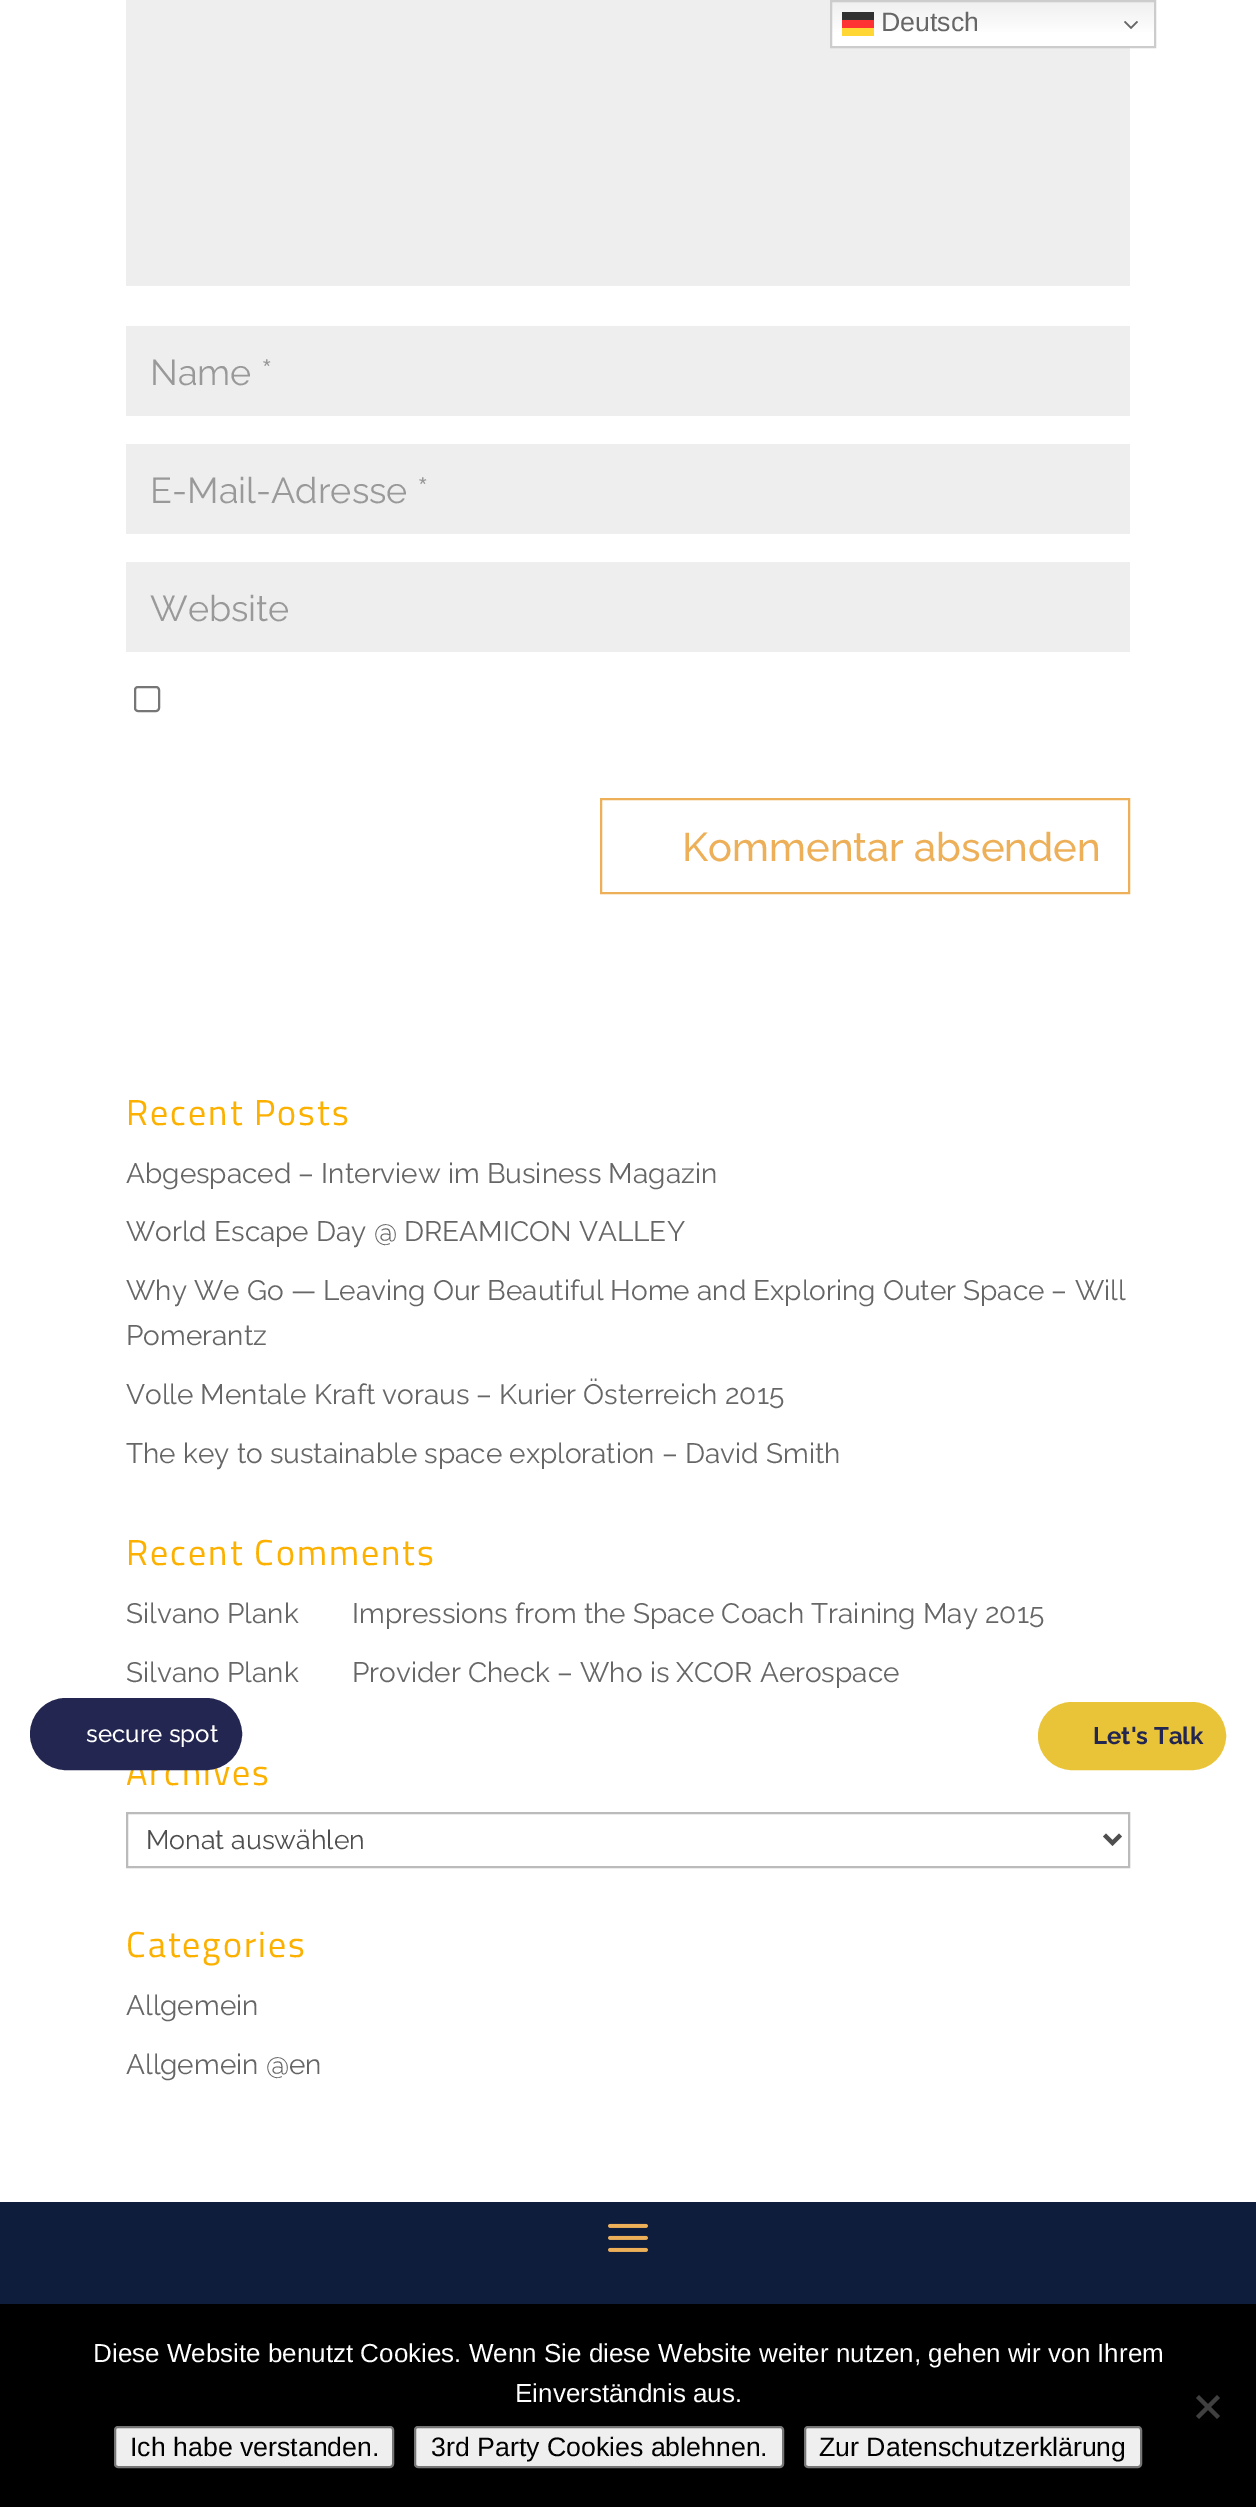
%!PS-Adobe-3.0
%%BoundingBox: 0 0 1256 2507
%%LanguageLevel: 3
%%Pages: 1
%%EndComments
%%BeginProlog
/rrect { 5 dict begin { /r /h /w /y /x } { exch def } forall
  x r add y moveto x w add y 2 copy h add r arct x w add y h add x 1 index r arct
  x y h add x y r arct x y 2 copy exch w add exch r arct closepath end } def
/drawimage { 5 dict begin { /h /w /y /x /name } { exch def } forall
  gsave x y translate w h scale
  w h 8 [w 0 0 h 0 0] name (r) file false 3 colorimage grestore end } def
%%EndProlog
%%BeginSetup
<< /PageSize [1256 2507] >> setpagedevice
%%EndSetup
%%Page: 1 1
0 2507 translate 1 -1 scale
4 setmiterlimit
0.059 0.114 0.239 setrgbcolor
0 0 1256 2507 rectfill
1 setgray
0 0 1256 2202 rectfill
0.933 setgray
126 0 1004 286 rectfill
gsave newpath 832 2 moveto 1154 2 lineto 1154 46 lineto 832 46 lineto closepath clip newpath
<< /ShadingType 2 /ColorSpace /DeviceRGB /Coords [993 0 993 48] /Extend [true true] /Function << /FunctionType 3 /Domain [0 1] /Functions [<< /FunctionType 2 /Domain [0 1] /C0 [0.937 0.937 0.937] /C1 [1 1 1] /N 1 >> << /FunctionType 2 /Domain [0 1] /C0 [1 1 1] /C1 [1 1 1] /N 1 >>] /Bounds [0.7] /Encode [0 1 0 1] >> >> shfill grestore
gsave newpath 842 20 moveto 874 20 lineto 874 28 lineto 842 28 lineto closepath clip newpath
<< /ShadingType 2 /ColorSpace /DeviceRGB /Coords [993 0 993 48] /Extend [true true] /Function << /FunctionType 3 /Domain [0 1] /Functions [<< /FunctionType 2 /Domain [0 1] /C0 [0.988 0.188 0.188] /C1 [1 0.2 0.2] /N 1 >> << /FunctionType 2 /Domain [0 1] /C0 [1 0.2 0.2] /C1 [1 0.2 0.2] /N 1 >>] /Bounds [0.7] /Encode [0 1 0 1] >> >> shfill grestore
gsave newpath 842 12 moveto 874 12 lineto 874 20 lineto 842 20 lineto closepath clip newpath
<< /ShadingType 2 /ColorSpace /DeviceRGB /Coords [993 0 993 48] /Extend [true true] /Function << /FunctionType 3 /Domain [0 1] /Functions [<< /FunctionType 2 /Domain [0 1] /C0 [0.188 0.188 0.188] /C1 [0.2 0.2 0.2] /N 1 >> << /FunctionType 2 /Domain [0 1] /C0 [0.2 0.2 0.2] /C1 [0.2 0.2 0.2] /N 1 >>] /Bounds [0.7] /Encode [0 1 0 1] >> >> shfill grestore
0.8 setgray
2 setlinewidth
831 1 324 46 rectstroke
(images/1.raw) 1124 21 14 8 drawimage
1 0.839 0.2 setrgbcolor
842 28 32 8 rectfill
0.933 setgray
126 326 1004 90 rectfill
126 444 1004 90 rectfill
126 562 1004 90 rectfill
0.463 setgray
135 687 24 24 3 rrect stroke
0.929 0.69 0.349 setrgbcolor
601 799 528 94 rectstroke
0.733 setgray
127 1813 1002 54 rectstroke
0.306 setgray
4 setlinewidth
newpath 1104.5 1835 moveto 1112.5 1843 lineto 1120.5 1835 lineto stroke
(images/2.raw) 608 2223 40 29 drawimage
0.914 0.769 0.22 setrgbcolor
1041 1705 182 62 31 rrect gsave fill grestore
6 setlinewidth
stroke
0 setgray
0 2304 1256 203 rectfill
0.251 setgray
newpath 1217 2395 moveto 1220 2398 lineto 1199 2419 lineto 1196 2416 lineto closepath fill
newpath 1196 2398 moveto 1199 2395 lineto 1220 2416 lineto 1217 2419 lineto closepath fill
0.937 setgray
115 2427 278 40 3 rrect gsave fill grestore
0.463 setgray
2 setlinewidth
stroke
0.937 setgray
415 2427 368 40 3 rrect gsave fill grestore
0.463 setgray
stroke
0.937 setgray
805 2427 336 40 3 rrect gsave fill grestore
0.463 setgray
stroke
/LiberationSans-Regular [26.7 0 0 -26.7 0 0] selectfont
0.4 setgray
881 31 moveto (Deutsch) show
/Raleway-Regular [36 0 0 -36 0 0] selectfont
0.6 setgray
150 385 moveto (Name *) show
150 503 moveto (E-Mail-Adresse *) show
150 621 moveto (Website) show
/Raleway-Medium [40 0 0 -40 0 0] selectfont
0.929 0.69 0.349 setrgbcolor
682 861 moveto (Kommentar absenden) show
/TitilliumWeb-Regular [36 0 0 -36 0 0] selectfont
0.988 0.69 0 setrgbcolor
126 1125 moveto 2 0 (Recent Posts) ashow
/Raleway-Regular [28 0 0 -28 0 0] selectfont
0.4 setgray
126 1183 moveto (Abgespaced – Interview im Business Magazin) show
126 1241 moveto (World Escape Day @ DREAMICON VALLEY) show
126 1300 moveto (Why We Go — Leaving Our Beautiful Home and Exploring Outer Space – Will) show
126 1345 moveto (Pomerantz) show
126 1404 moveto (Volle Mentale Kraft voraus – Kurier Österreich 2015) show
126 1463 moveto (The key to sustainable space exploration – David Smith) show
/TitilliumWeb-Regular [36 0 0 -36 0 0] selectfont
0.988 0.69 0 setrgbcolor
126 1565 moveto 2 0 (Recent Comments) ashow
/Raleway-Regular [28 0 0 -28 0 0] selectfont
0.4 setgray
126 1623 moveto (Silvano Plank) show
352 1623 moveto (Impressions from the Space Coach Training May 2015) show
126 1682 moveto (Silvano Plank) show
352 1682 moveto (Provider Check – Who is XCOR Aerospace) show
/TitilliumWeb-Regular [36 0 0 -36 0 0] selectfont
0.988 0.69 0 setrgbcolor
126 1785 moveto 2 0 (Archives) ashow
/Raleway-Regular [26.7 0 0 -26.7 0 0] selectfont
0.306 setgray
146 1849 moveto (Monat auswählen) show
/TitilliumWeb-Regular [36 0 0 -36 0 0] selectfont
0.988 0.69 0 setrgbcolor
126 1957 moveto 2 0 (Categories) ashow
/Raleway-Regular [28 0 0 -28 0 0] selectfont
0.4 setgray
126 2015 moveto (Allgemein) show
126 2074 moveto (Allgemein @en) show
0.137 0.149 0.314 setrgbcolor
34 1702 204 64 32 rrect gsave fill grestore
8 setlinewidth
stroke
/Raleway-Medium [24 0 0 -24 0 0] selectfont
1 setgray
86 1742 moveto (secure spot) show
/Raleway-Bold [24 0 0 -24 0 0] selectfont
0.137 0.149 0.314 setrgbcolor
1093 1744 moveto (Let's Talk) show
/LiberationSans-Regular [26 0 0 -26 0 0] selectfont
1 setgray
93 2362 moveto (Diese Website benutzt Cookies. Wenn Sie diese Website weiter nutzen, gehen wir von Ihrem) show
515 2402 moveto (Einverständnis aus.) show
/LiberationSans-Regular [26.7 0 0 -26.7 0 0] selectfont
0 setgray
130 2456 moveto (Ich habe verstanden.) show
431 2456 moveto (3rd Party Cookies ablehnen.) show
819 2456 moveto (Zur Datenschutzerklärung) show
showpage
%%EOF
